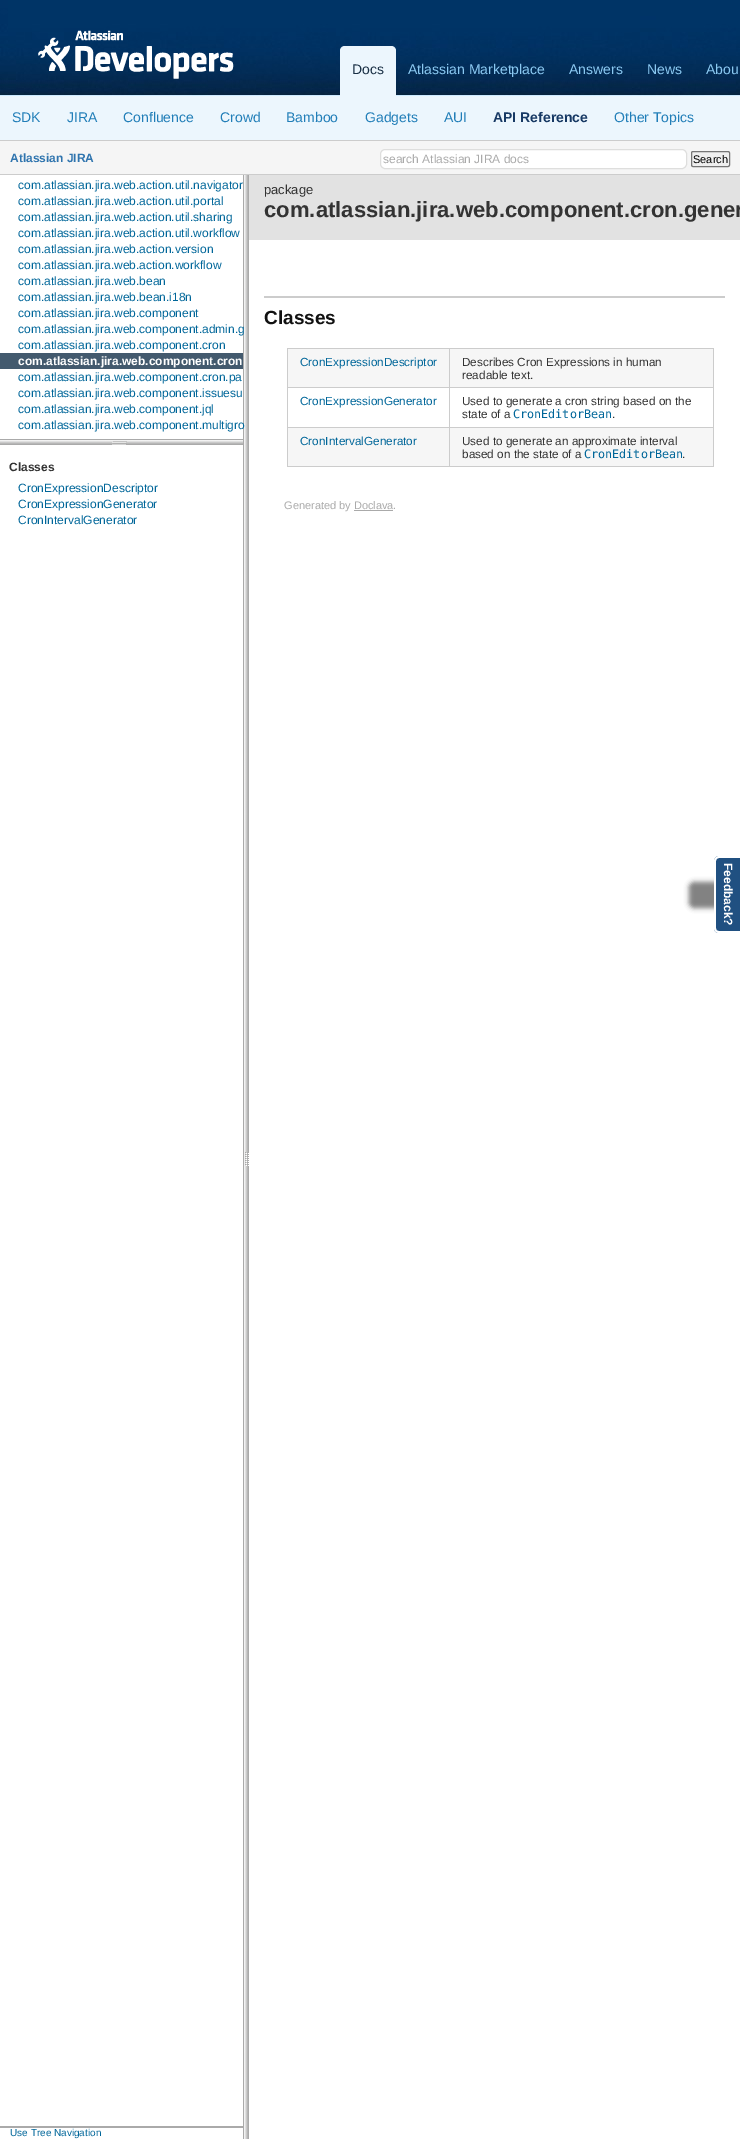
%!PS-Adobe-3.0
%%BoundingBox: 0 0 740 2141
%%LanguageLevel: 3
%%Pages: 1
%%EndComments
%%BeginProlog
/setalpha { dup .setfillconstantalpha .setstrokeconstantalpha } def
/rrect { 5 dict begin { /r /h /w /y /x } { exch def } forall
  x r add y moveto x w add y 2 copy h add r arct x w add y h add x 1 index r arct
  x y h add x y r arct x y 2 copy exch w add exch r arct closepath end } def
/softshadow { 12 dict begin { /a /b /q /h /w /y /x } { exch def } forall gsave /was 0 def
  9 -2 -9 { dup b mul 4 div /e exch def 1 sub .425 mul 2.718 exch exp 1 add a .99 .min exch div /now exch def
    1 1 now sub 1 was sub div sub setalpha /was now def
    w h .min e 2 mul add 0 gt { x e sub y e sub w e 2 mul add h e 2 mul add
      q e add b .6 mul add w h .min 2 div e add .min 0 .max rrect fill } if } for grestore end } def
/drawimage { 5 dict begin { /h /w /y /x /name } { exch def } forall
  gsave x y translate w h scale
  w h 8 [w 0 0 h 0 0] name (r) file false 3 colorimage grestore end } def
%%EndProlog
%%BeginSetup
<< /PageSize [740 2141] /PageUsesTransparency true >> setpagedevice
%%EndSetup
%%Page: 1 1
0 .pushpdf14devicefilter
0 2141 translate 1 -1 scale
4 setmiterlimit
1 setgray
0 0 740 2141 rectfill
0.925 0.965 0.992 setrgbcolor
0 96 740 44 rectfill
(images/1.raw) 0 0 740 96 drawimage
0.8 setgray
0 174 740 1 rectfill
(images/2.raw) 38 30 196 49 drawimage
0.925 0.965 0.992 setrgbcolor
newpath 345 46 moveto 391 46 lineto 394 46 396 48 396 51 curveto 396 96 lineto 340 96 lineto 340 51 lineto 340 48 342 46 345 46 curveto closepath fill
0.961 setgray
0 141 740 33 rectfill
0.8 setgray
0 140 740 1 rectfill
1 setgray
380.5 149.5 306 19 4.5 rrect gsave fill grestore
0.871 0.871 0.867 setrgbcolor
stroke
0.937 setgray
691.5 151.5 38 15 1.5 rrect gsave fill grestore
0.463 setgray
stroke
0.667 setgray
0 2126 243 2 rectfill
0.263 0.353 0.431 setrgbcolor
0 353 243 16 rectfill
(images/3.raw) 0 439 243 6 drawimage
(images/4.raw) 243 175 6 1964 drawimage
0.886 setgray
249 175 491 65 rectfill
0.8 setgray
264 296 461 2 rectfill
0.965 setgray
288 349 425 38 rectfill
0.8 setgray
449 348 265 1 rectfill
449 387 265 1 rectfill
449 427 265 1 rectfill
0.965 setgray
288 428 425 38 rectfill
0.8 setgray
713 427 1 40 rectfill
449 466 265 1 rectfill
449 427 1 40 rectfill
287 427 163 1 rectfill
449 387 1 41 rectfill
287 387 163 1 rectfill
449 348 1 40 rectfill
287 348 163 1 rectfill
287 466 163 1 rectfill
287 427 1 40 rectfill
287 387 1 41 rectfill
287 348 1 40 rectfill
713 387 1 41 rectfill
713 348 1 40 rectfill
0.667 setgray
354 510 39 1 rectfill
0 setgray
689 882 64 26 5 2.5 0.5 softshadow
0.125 0.314 0.506 setrgbcolor
newpath 740 856 moveto 740 933 lineto 719 933 lineto 716 933 714 931 714 928 curveto 714 861 lineto 714 859 716 856 719 856 curveto closepath fill
1 setgray
newpath 740 856 moveto 740 933 lineto 719 933 lineto 716 933 714 931 714 928 curveto 714 861 lineto 714 859 716 856 719 856 curveto closepath 740 858 moveto 740 931 lineto 719 931 lineto 717 931 716 930 716 928 curveto 716 861 lineto 716 860 717 858 719 858 curveto closepath eofill
/LiberationSans-Regular [14 0 0 -14 0 0] selectfont
0.102 0.188 0.271 setrgbcolor
352 74 moveto (Docs) show
0.545 0.788 0.949 setrgbcolor
408 74 moveto (Atlassian Marketplace) show
569 74 moveto (Answers) show
647 74 moveto (News) show
706 74 moveto (Abou) show
0.129 0.494 0.722 setrgbcolor
12 122 moveto (SDK) show
67 122 moveto (JIRA) show
123 122 moveto (Confluence) show
220 122 moveto (Crowd) show
286 122 moveto (Bamboo) show
365 122 moveto (Gadgets) show
444 122 moveto (AUI) show
/LiberationSans-Bold [14 0 0 -14 0 0] selectfont
0.09 0.224 0.392 setrgbcolor
493 122 moveto (API Reference) show
/LiberationSans-Regular [14 0 0 -14 0 0] selectfont
0.129 0.494 0.722 setrgbcolor
614 122 moveto (Other Topics) show
/LiberationSans-Bold [12 0 0 -12 0 0] selectfont
0.184 0.455 0.682 setrgbcolor
10 162 moveto (Atlassian JIRA) show
/LiberationSans-Regular [12 0 0 -12 0 0] selectfont
0.667 setgray
383 163 moveto (search Atlassian JIRA docs) show
/LiberationSans-Regular [11 0 0 -11 0 0] selectfont
0 setgray
693 163 moveto (Search) show
/LiberationSans-Regular [12 0 0 -12 0 0] selectfont
0 0.4 0.6 setrgbcolor
18 189 moveto (com.atlassian.jira.web.action.util.navigator) show
18 205 moveto (com.atlassian.jira.web.action.util.portal) show
18 221 moveto (com.atlassian.jira.web.action.util.sharing) show
18 237 moveto (com.atlassian.jira.web.action.util.workflow) show
18 253 moveto (com.atlassian.jira.web.action.version) show
18 269 moveto (com.atlassian.jira.web.action.workflow) show
18 285 moveto (com.atlassian.jira.web.bean) show
18 301 moveto (com.atlassian.jira.web.bean.i18n) show
18 317 moveto (com.atlassian.jira.web.component) show
18 333 moveto (com.atlassian.jira.web.component.admin.g) show
18 349 moveto (com.atlassian.jira.web.component.cron) show
/LiberationSans-Bold [12 0 0 -12 0 0] selectfont
1 setgray
18 365 moveto (com.atlassian.jira.web.component.cron) show
/LiberationSans-Regular [12 0 0 -12 0 0] selectfont
0 0.4 0.6 setrgbcolor
18 381 moveto (com.atlassian.jira.web.component.cron.pa) show
18 397 moveto (com.atlassian.jira.web.component.issuesu) show
18 413 moveto (com.atlassian.jira.web.component.jql) show
18 429 moveto (com.atlassian.jira.web.component.multigro) show
/LiberationSans-Bold [12 0 0 -12 0 0] selectfont
0.2 setgray
9 471 moveto (Classes) show
/LiberationSans-Regular [12 0 0 -12 0 0] selectfont
0 0.4 0.6 setrgbcolor
18 492 moveto (CronExpressionDescriptor) show
18 508 moveto (CronExpressionGenerator) show
18 524 moveto (CronIntervalGenerator) show
/LiberationSans-Regular [10 0 0 -10 0 0] selectfont
10 2136 moveto (Use Tree Navigation) show
/LiberationSans-Regular [13 0 0 -13 0 0] selectfont
0.2 setgray
264 194 moveto (package) show
/LiberationSans-Bold [22.1 0 0 -22.1 0 0] selectfont
264 217 moveto (com.atlassian.jira.web.component.cron.gener) show
/LiberationSans-Bold [19 0 0 -19 0 0] selectfont
0.067 setgray
264 324 moveto (Classes) show
/LiberationSans-Regular [11.75 0 0 -11.75 0 0] selectfont
0 0.4 0.6 setrgbcolor
300 366 moveto (CronExpressionDescriptor) show
0.2 setgray
462 366 moveto (Describes Cron Expressions in human) show
462 379 moveto (readable text.) show
0 0.4 0.6 setrgbcolor
300 405 moveto (CronExpressionGenerator) show
0.2 setgray
462 405 moveto (Used to generate a cron string based on the) show
462 418 moveto (state of a) show
/DejaVuSansMono-Regular [11.75 0 0 -11.75 0 0] selectfont
0 0.4 0.6 setrgbcolor
513 418 moveto (CronEditorBean) show
/LiberationSans-Regular [11.75 0 0 -11.75 0 0] selectfont
0.2 setgray
612 418 moveto (.) show
0 0.4 0.6 setrgbcolor
300 445 moveto (CronIntervalGenerator) show
0.2 setgray
462 445 moveto (Used to generate an approximate interval) show
462 458 moveto (based on the state of a) show
/DejaVuSansMono-Regular [11.75 0 0 -11.75 0 0] selectfont
0 0.4 0.6 setrgbcolor
584 458 moveto (CronEditorBean) show
/LiberationSans-Regular [11.75 0 0 -11.75 0 0] selectfont
0.2 setgray
682 458 moveto (.) show
/LiberationSans-Regular [11 0 0 -11 0 0] selectfont
0.667 setgray
284 509 moveto (Generated by Doclava.) show
/LiberationSans-Bold [12 0 0 -12 0 0] selectfont
1 setgray
gsave 724 863 translate 90 rotate 0 0 moveto (Feedback?) show grestore
.poppdf14devicefilter showpage
%%EOF
